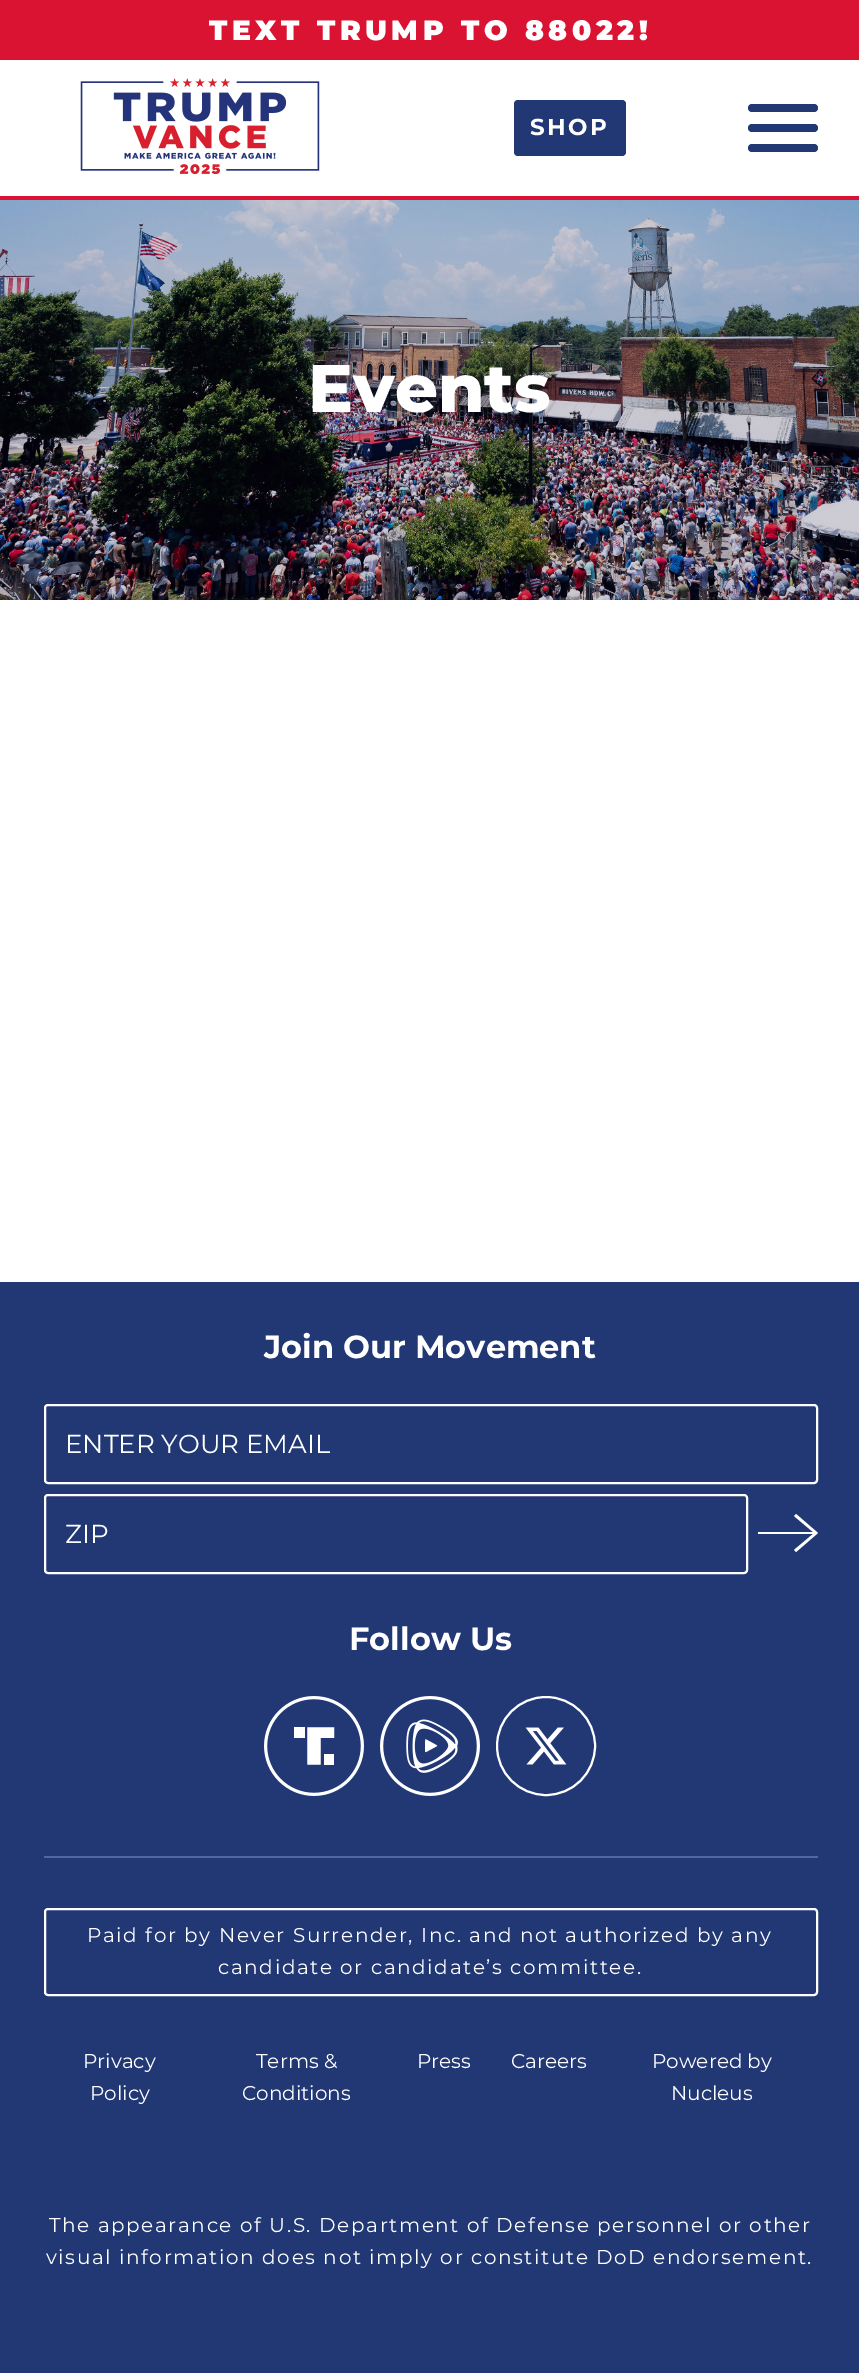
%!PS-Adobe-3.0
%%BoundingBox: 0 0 859 2373
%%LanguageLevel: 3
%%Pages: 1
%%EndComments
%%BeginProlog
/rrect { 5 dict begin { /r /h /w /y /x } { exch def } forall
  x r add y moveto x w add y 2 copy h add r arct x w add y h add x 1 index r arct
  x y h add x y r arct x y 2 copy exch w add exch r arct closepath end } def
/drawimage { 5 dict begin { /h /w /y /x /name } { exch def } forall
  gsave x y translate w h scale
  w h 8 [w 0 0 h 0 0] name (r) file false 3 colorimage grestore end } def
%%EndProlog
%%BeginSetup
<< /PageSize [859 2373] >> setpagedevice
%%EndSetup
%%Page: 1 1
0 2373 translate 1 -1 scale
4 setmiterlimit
1 setgray
0 0 859 2373 rectfill
0.855 0.075 0.2 setrgbcolor
0 0 859 60 rectfill
0 196 859 4 rectfill
(images/1.raw) 80 78 240 97 drawimage
0.129 0.22 0.459 setrgbcolor
514 100 112 56 4 rrect fill
748 104 70 8 4 rrect fill
748 124 70 8 4 rrect fill
748 144 70 8 4 rrect fill
(images/2.raw) 0 200 859 400 drawimage
0 1282 859 1091 rectfill
0.31 0.404 0.651 setrgbcolor
44 1856 774 2 rectfill
1 setgray
2 setlinewidth
45 1405 772 78 3 rrect stroke
45 1495 702 78 3 rrect stroke
newpath 813 1534 moveto 794 1550 lineto 796 1552 lineto 818 1533 lineto 796 1514 lineto 794 1516 lineto 813 1532 lineto 758 1532 lineto 758 1534 lineto closepath eofill
(images/3.raw) 264 1696 100 100 drawimage
(images/4.raw) 380 1696 100 100 drawimage
newpath 546 1746 49 0 360 arc closepath stroke
(images/5.raw) 525 1727 42 38 drawimage
45 1909 772 86 3 rrect stroke
/Montserrat-Black [28 0 0 -28 0 0] selectfont
209 40 moveto 4.5 0 (TEXT TRUMP TO 88022!) ashow
/Montserrat-Bold [23 0 0 -23 0 0] selectfont
530 135 moveto 2.5 0 (SHOP) ashow
/Montserrat-ExtraBold [67 0 0 -67 0 0] selectfont
308 412 moveto (Events) show
/Montserrat-Bold [32 0 0 -32 0 0] selectfont
264 1358 moveto (Join Our Movement) show
/Montserrat-Regular [26 0 0 -26 0 0] selectfont
65 1453 moveto (ENTER YOUR EMAIL) show
65 1543 moveto (ZIP) show
/Montserrat-Bold [32 0 0 -32 0 0] selectfont
349 1650 moveto (Follow Us) show
/Montserrat-Regular [20 0 0 -20 0 0] selectfont
87 1942 moveto 1.6 0 (Paid for by Never Surrender, Inc. and not authorized by any) ashow
218 1974 moveto 1.6 0 (candidate or candidate’s committee.) ashow
83 2068 moveto (Privacy) show
90 2100 moveto (Policy) show
256 2068 moveto (Terms &) show
242 2100 moveto (Conditions) show
417 2068 moveto (Press) show
511 2068 moveto (Careers) show
652 2068 moveto (Powered by) show
671 2100 moveto (Nucleus) show
49 2232 moveto 1.6 0 (The appearance of U.S. Department of Defense personnel or other) ashow
46 2264 moveto 1.6 0 (visual information does not imply or constitute DoD endorsement.) ashow
showpage
%%EOF
